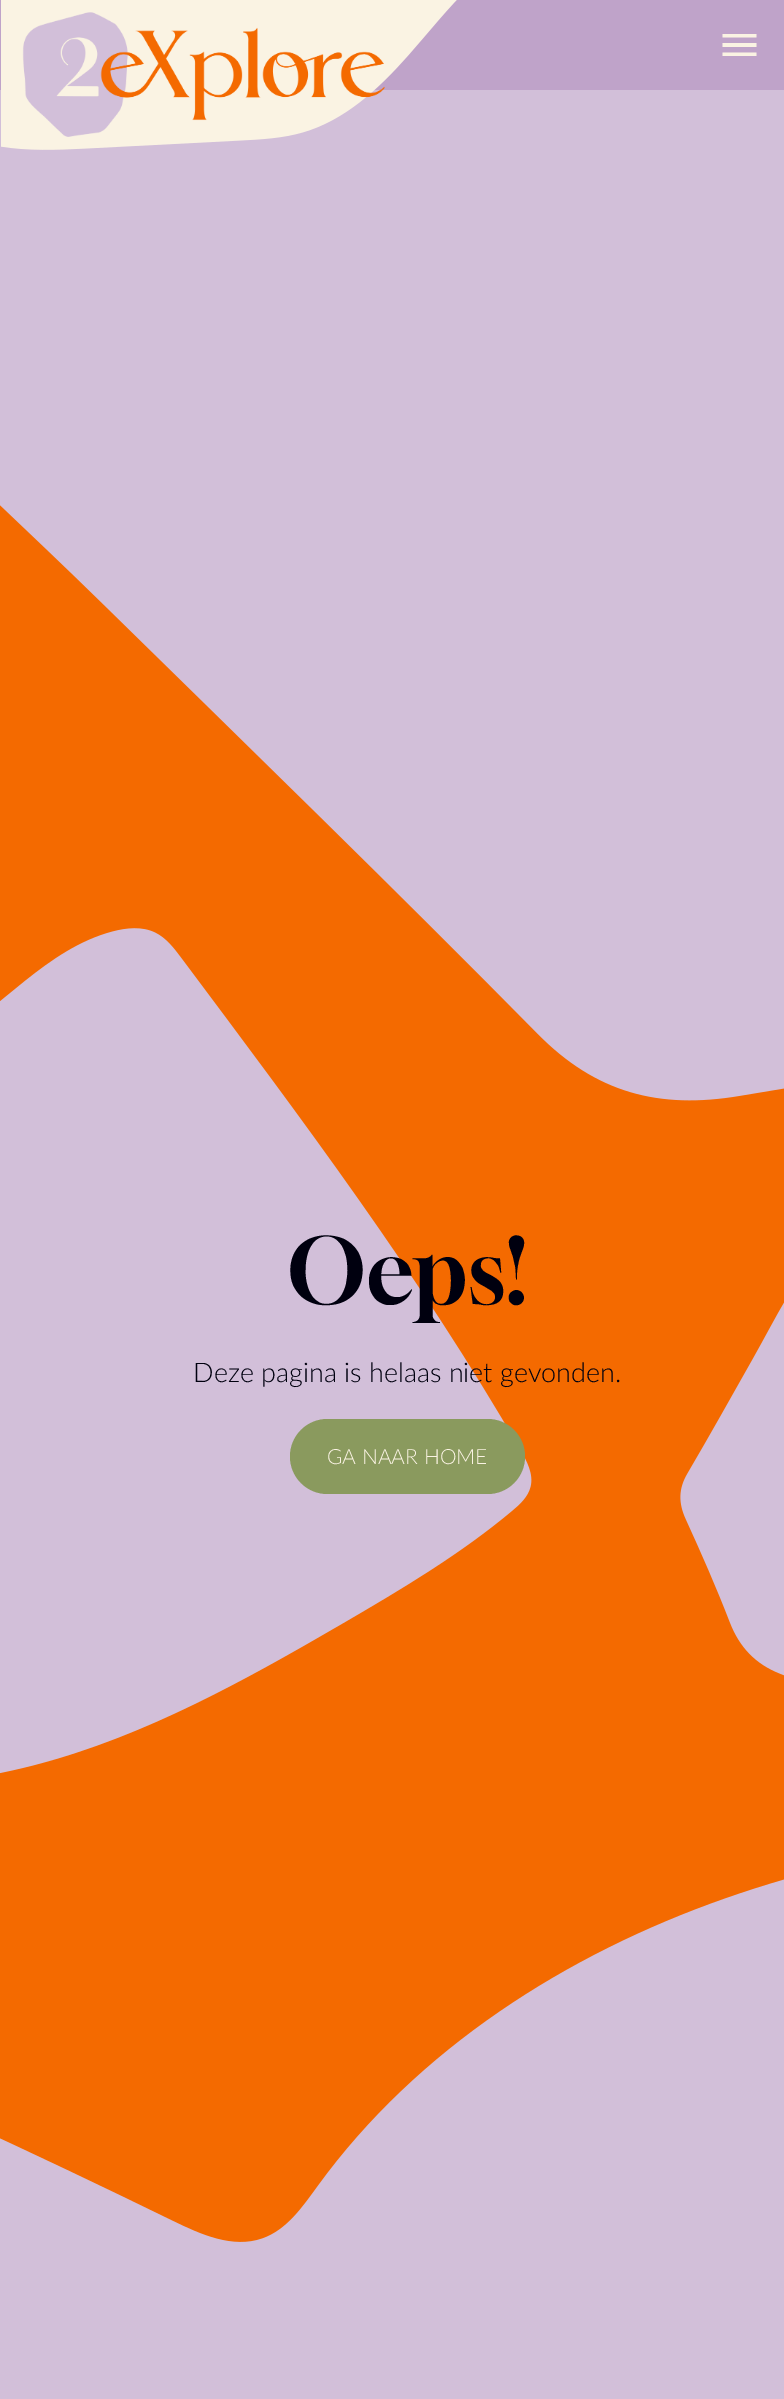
%!PS-Adobe-3.0
%%BoundingBox: 0 0 784 2399
%%LanguageLevel: 3
%%Pages: 1
%%EndComments
%%BeginProlog
/rrect { 5 dict begin { /r /h /w /y /x } { exch def } forall
  x r add y moveto x w add y 2 copy h add r arct x w add y h add x 1 index r arct
  x y h add x y r arct x y 2 copy exch w add exch r arct closepath end } def
/drawimage { 5 dict begin { /h /w /y /x /name } { exch def } forall
  gsave x y translate w h scale
  w h 8 [w 0 0 h 0 0] name (r) file false 3 colorimage grestore end } def
%%EndProlog
%%BeginSetup
<< /PageSize [784 2399] >> setpagedevice
%%EndSetup
%%Page: 1 1
0 2399 translate 1 -1 scale
4 setmiterlimit
0.824 0.749 0.851 setrgbcolor
0 0 784 2399 rectfill
0.749 0.639 0.788 setrgbcolor
0 0 784 90 rectfill
(images/1.raw) 1 0 456 150 drawimage
(images/2.raw) 22 12 363 125 drawimage
0.98 0.953 0.89 setrgbcolor
newpath 722.5 56 moveto 756.5 56 lineto 756.5 52.5 lineto 722.5 52.5 lineto closepath 722.5 47 moveto 756.5 47 lineto 756.5 43 lineto 722.5 43 lineto closepath 722.5 34 moveto 722.5 37.5 lineto 756.5 37.5 lineto 756.5 34 lineto closepath fill
(images/3.raw) 0 505 784 1737 drawimage
0.541 0.604 0.369 setrgbcolor
290 1419 235 75 37.5 rrect fill
/Gloock-Regular [90 0 0 -90 0 0] selectfont
0 0 0.059 setrgbcolor
287 1304 moveto (Oeps!) show
/Lato-Light [27 0 0 -27 0 0] selectfont
193 1382 moveto (Deze pagina is helaas niet gevonden.) show
/Lato-Light [21 0 0 -21 0 0] selectfont
0.98 0.953 0.89 setrgbcolor
327 1464 moveto (GA NAAR HOME) show
showpage
%%EOF
